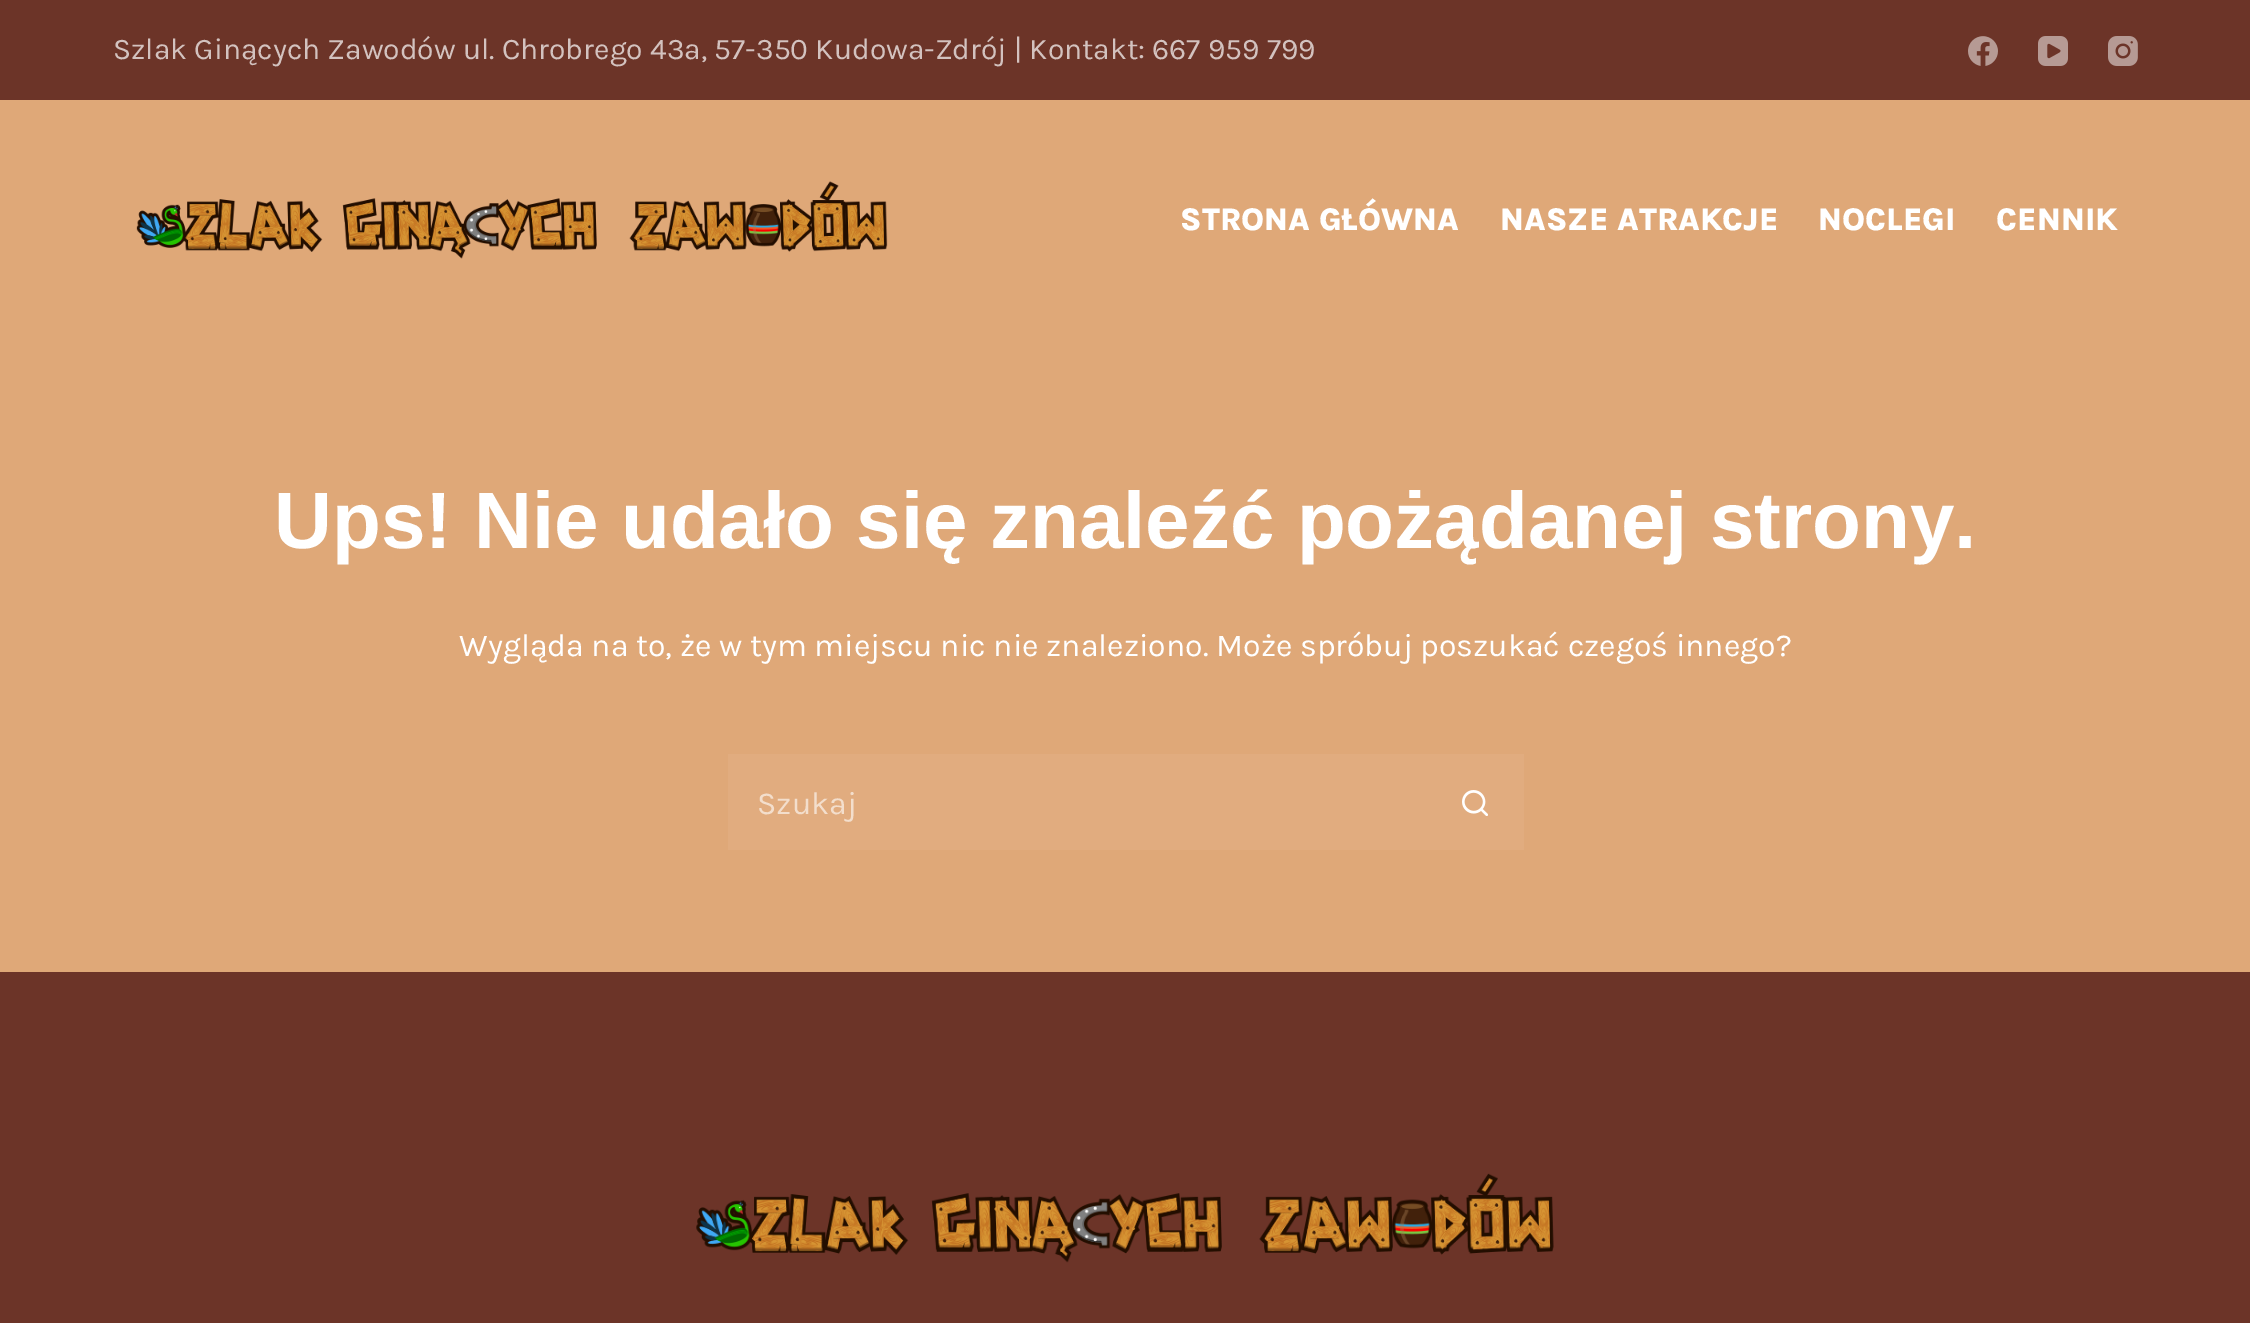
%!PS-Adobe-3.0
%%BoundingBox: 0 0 2250 1323
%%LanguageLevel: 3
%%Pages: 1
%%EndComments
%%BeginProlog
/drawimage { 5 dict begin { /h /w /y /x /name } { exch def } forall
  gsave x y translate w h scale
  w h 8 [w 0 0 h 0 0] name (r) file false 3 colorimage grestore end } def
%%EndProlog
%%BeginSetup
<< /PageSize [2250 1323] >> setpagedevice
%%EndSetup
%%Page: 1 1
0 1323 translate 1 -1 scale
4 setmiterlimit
0.875 0.659 0.471 setrgbcolor
0 0 2250 1323 rectfill
0.424 0.204 0.157 setrgbcolor
0 0 2250 100 rectfill
(images/1.raw) 1968 36 30 30 drawimage
(images/2.raw) 2038 36 30 30 drawimage
(images/3.raw) 2108 36 30 30 drawimage
(images/4.raw) 136 181 752 78 drawimage
0.882 0.675 0.498 setrgbcolor
728 754 796 96 rectfill
(images/5.raw) 1462 790 26 26 drawimage
0.424 0.204 0.157 setrgbcolor
0 972 2250 351 rectfill
(images/6.raw) 696 1173 858 90 drawimage
/Karla-Regular [30 0 0 -30 0 0] selectfont
0.827 0.761 0.749 setrgbcolor
113 59 moveto (Szlak Ginących Zawodów ul. Chrobrego 43a, 57-350 Kudowa-Zdrój | Kontakt: 667 959 799) show
/Karla-ExtraBold [32 0 0 -32 0 0] selectfont
1 setgray
1180 230 moveto (STRONA GŁÓWNA) show
1500 230 moveto (NASZE ATRAKCJE) show
1818 230 moveto (NOCLEGI) show
1996 230 moveto (CENNIK) show
/LiberationSans-Bold [80 0 0 -80 0 0] selectfont
274 548 moveto (Ups! Nie udało się znaleźć pożądanej strony.) show
/Karla-Regular [32 0 0 -32 0 0] selectfont
459 656 moveto (Wygląda na to, że w tym miejscu nic nie znaleziono. Może spróbuj poszukać czegoś innego?) show
0.953 0.871 0.8 setrgbcolor
757 814 moveto (Szukaj) show
showpage
%%EOF
